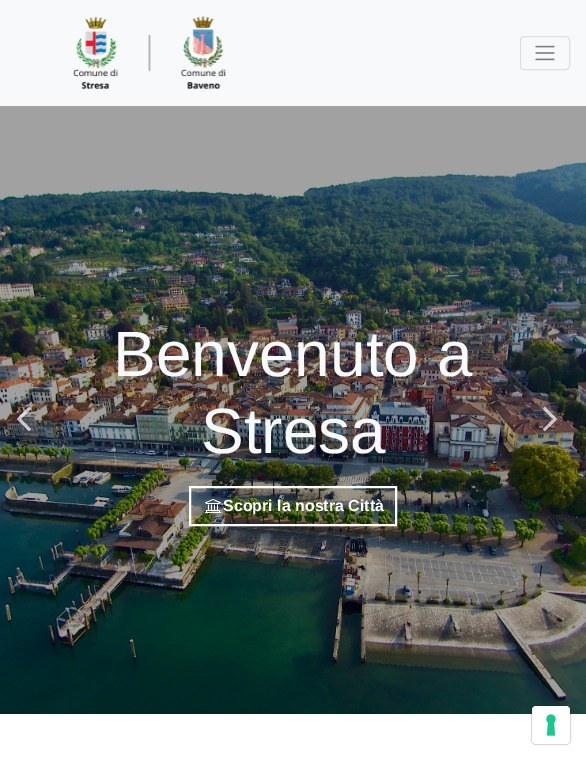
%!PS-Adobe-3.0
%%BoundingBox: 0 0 586 760
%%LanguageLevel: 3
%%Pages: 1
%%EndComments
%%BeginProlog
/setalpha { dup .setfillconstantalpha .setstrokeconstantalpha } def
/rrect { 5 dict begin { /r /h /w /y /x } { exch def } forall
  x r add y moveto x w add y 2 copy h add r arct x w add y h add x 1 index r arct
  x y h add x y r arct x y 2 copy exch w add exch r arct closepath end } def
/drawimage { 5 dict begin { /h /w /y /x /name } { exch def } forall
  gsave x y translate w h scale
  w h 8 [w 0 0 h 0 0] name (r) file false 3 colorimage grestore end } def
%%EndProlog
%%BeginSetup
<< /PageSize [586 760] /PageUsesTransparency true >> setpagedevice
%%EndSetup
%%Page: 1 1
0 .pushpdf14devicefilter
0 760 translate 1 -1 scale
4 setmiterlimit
1 setgray
0 0 586 760 rectfill
0.631 setgray
0 106 586 56 rectfill
0.973 0.976 0.98 setrgbcolor
0 0 586 106 rectfill
(images/1.raw) 73 16 153 73 drawimage
0.875 0.878 0.882 setrgbcolor
520.5 36.5 49 33 3.5 rrect stroke
(images/2.raw) 535 45 20 16 drawimage
(images/4.raw) 0 162 586 552 drawimage
(images/3.raw) 17 407 14 24 drawimage
1 setgray
2 setlinewidth
190 487 206 38 rectstroke
(images/5.raw) 205 499 16 14 drawimage
(images/6.raw) 543 407 14 24 drawimage
0.15 setalpha
0 setgray
1 setlinewidth
531.5 705.5 39 39 4.5 rrect stroke
1 setalpha
1 setgray
532 706 38 38 4 rrect fill
(images/7.raw) 546 714 10 22 drawimage
/LiberationSans-Regular [64 0 0 -64 0 0] selectfont
0.973 0.976 0.98 setrgbcolor
113 376 moveto (Benvenuto a) show
201 453 moveto (Stresa) show
/LiberationSans-Bold [16 0 0 -16 0 0] selectfont
1 setgray
223 511 moveto (Scopri la nostra Città) show
.poppdf14devicefilter showpage
%%EOF
